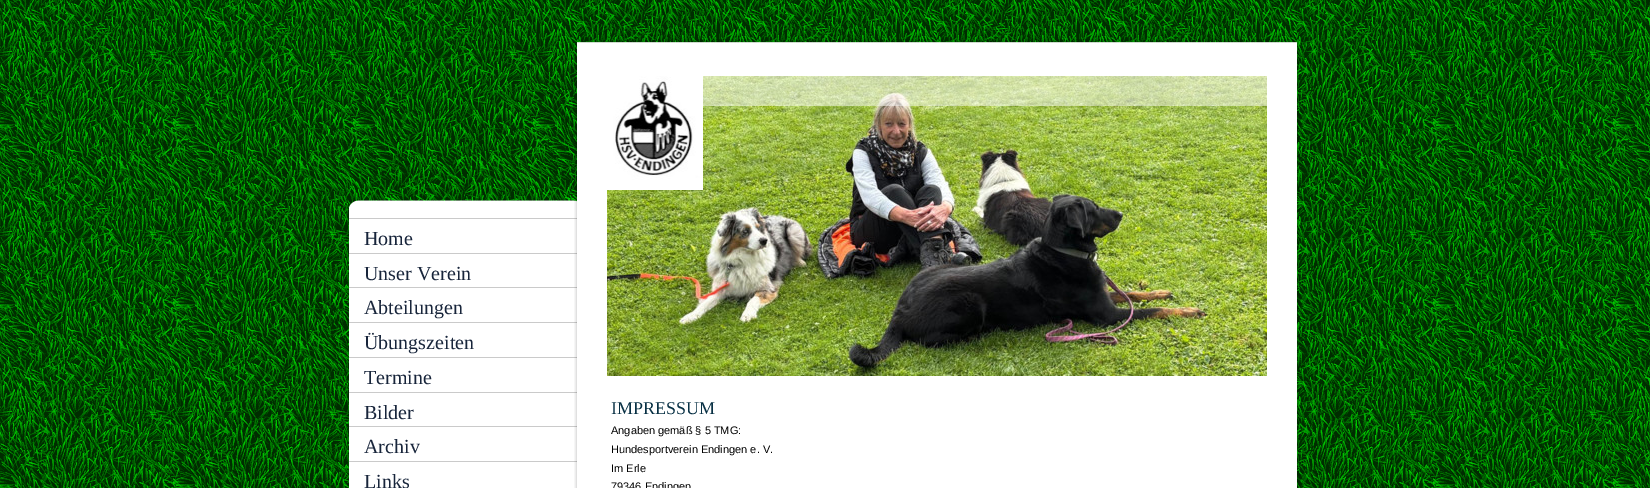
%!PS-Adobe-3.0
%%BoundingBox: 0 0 1650 488
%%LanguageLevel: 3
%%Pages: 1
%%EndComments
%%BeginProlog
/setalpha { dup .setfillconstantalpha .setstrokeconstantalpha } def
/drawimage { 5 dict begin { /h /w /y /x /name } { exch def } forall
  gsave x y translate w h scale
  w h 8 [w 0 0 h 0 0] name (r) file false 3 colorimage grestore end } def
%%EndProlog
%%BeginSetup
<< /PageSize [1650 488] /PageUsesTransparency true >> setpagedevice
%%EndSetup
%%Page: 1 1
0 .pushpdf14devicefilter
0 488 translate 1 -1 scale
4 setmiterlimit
1 setgray
0 0 1650 488 rectfill
(images/1.raw) 0 0 1650 488 drawimage
(images/2.raw) 349 200 228 18 drawimage
349 219 228 269 rectfill
0.792 setgray
349 218 229 1 rectfill
349 253 229 1 rectfill
349 287 229 1 rectfill
349 322 229 1 rectfill
349 357 229 1 rectfill
349 392 229 1 rectfill
349 426 229 1 rectfill
349 461 229 1 rectfill
(images/3.raw) 574 39 726 7 drawimage
(images/4.raw) 574 46 726 442 drawimage
(images/5.raw) 607 76 660 300 drawimage
(images/6.raw) 607 76 96 114 drawimage
0.5 setalpha
1 setgray
703 76 564 30 rectfill
/LiberationSerif-Regular [20 0 0 -20 0 0] selectfont
1 setalpha
0.094 0.145 0.231 setrgbcolor
364 245 moveto (Home) show
364 280 moveto (Unser Verein) show
364 314 moveto (Abteilungen) show
364 349 moveto (Übungszeiten) show
364 384 moveto (Termine) show
364 419 moveto (Bilder) show
364 453 moveto (Archiv) show
364 488 moveto (Links) show
/LiberationSerif-Regular [18 0 0 -18 0 0] selectfont
0.031 0.188 0.267 setrgbcolor
611 414 moveto (IMPRESSUM) show
/LiberationSans-Regular [11 0 0 -11 0 0] selectfont
0 setgray
611 434 moveto (Angaben gemäß § 5 TMG:) show
611 453 moveto (Hundesportverein Endingen e. V.) show
611 472 moveto (Im Erle) show
611 490 moveto (79346 Endingen) show
.poppdf14devicefilter showpage
%%EOF
